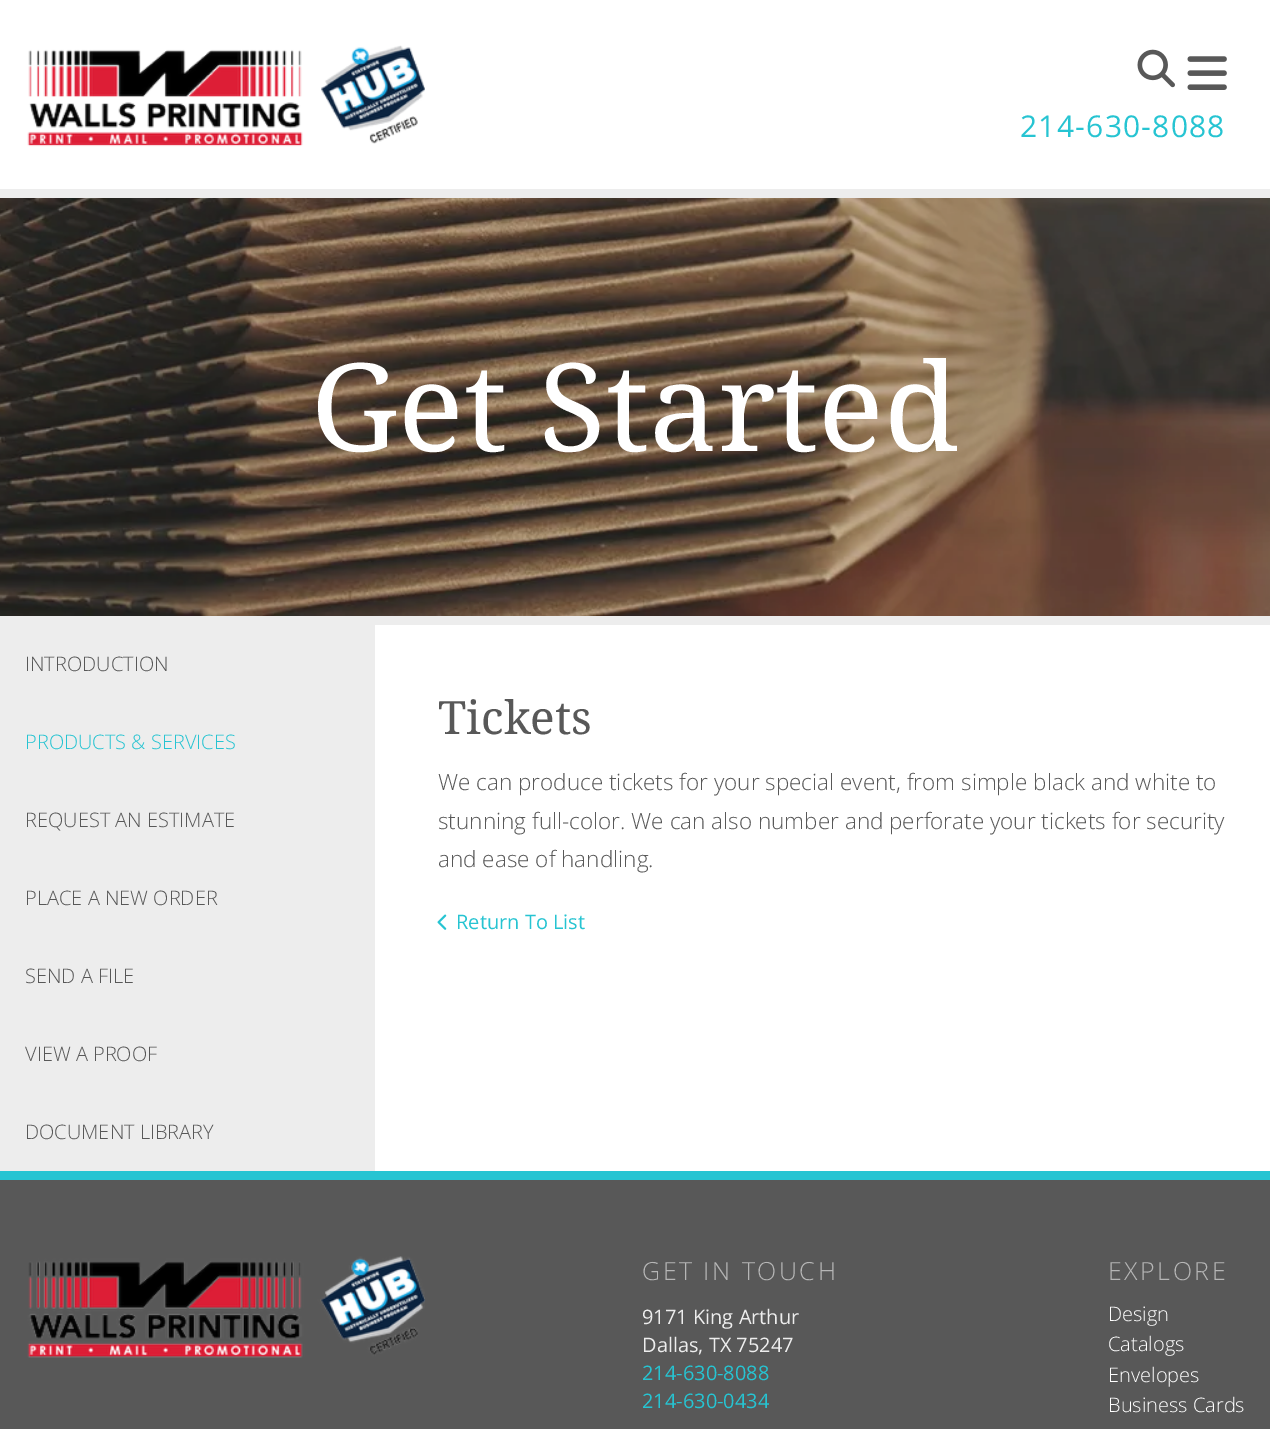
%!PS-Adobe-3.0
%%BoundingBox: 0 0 1270 1429
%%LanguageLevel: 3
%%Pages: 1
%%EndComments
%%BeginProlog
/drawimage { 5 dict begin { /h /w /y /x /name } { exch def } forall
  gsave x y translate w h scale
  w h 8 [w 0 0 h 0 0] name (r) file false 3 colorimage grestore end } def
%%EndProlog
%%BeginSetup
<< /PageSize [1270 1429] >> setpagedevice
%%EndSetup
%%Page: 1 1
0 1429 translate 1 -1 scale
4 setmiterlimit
0.345 setgray
0 0 1270 1429 rectfill
1 setgray
0 0 1270 189 rectfill
(images/1.raw) 27 45 398 102 drawimage
(images/2.raw) 1137 49 38 39 drawimage
(images/3.raw) 1187 56 40 34 drawimage
(images/4.raw) 0 198 1270 418 drawimage
0.929 setgray
0 189 1270 9 rectfill
0 616 1270 9 rectfill
1 setgray
375 625 895 546 rectfill
0.929 setgray
0 625 375 546 rectfill
(images/5.raw) 437 914 10 16 drawimage
0.149 0.769 0.824 setrgbcolor
0 1171 1270 9 rectfill
(images/6.raw) 27 1256 398 102 drawimage
/OpenSans-Regular [30 0 0 -30 0 0] selectfont
1020 137 moveto 1.25 0 (214-630-8088) ashow
/NotoSerif-Regular [122.5 0 0 -122.5 0 0] selectfont
1 setgray
311 451 moveto (Get Started) show
/OpenSans-Light [20 0 0 -20 0 0] selectfont
0.345 setgray
25 671 moveto (INTRODUCTION) show
0.149 0.769 0.824 setrgbcolor
25 749 moveto (PRODUCTS & SERVICES) show
0.345 setgray
25 827 moveto (REQUEST AN ESTIMATE) show
25 905 moveto (PLACE A NEW ORDER) show
25 983 moveto (SEND A FILE) show
25 1061 moveto (VIEW A PROOF) show
25 1139 moveto (DOCUMENT LIBRARY) show
/NotoSerif-Regular [46 0 0 -46 0 0] selectfont
438 734 moveto (Tickets) show
/OpenSans-Light [22.5 0 0 -22.5 0 0] selectfont
438 790 moveto (We can produce tickets for your special event, from simple black and white to) show
438 829 moveto (stunning full-color. We can also number and perforate your tickets for security) show
438 867 moveto (and ease of handling.) show
/OpenSans-Regular [20 0 0 -20 0 0] selectfont
0.149 0.769 0.824 setrgbcolor
456 929 moveto (Return To List) show
/OpenSans-Light [25 0 0 -25 0 0] selectfont
0.714 setgray
642 1280 moveto 2.5 0 (GET IN TOUCH) ashow
/OpenSans-Regular [20 0 0 -20 0 0] selectfont
0.929 setgray
642 1324 moveto (9171 King Arthur) show
642 1352 moveto (Dallas, TX 75247) show
0.149 0.769 0.824 setrgbcolor
642 1380 moveto (214-630-8088) show
642 1408 moveto (214-630-0434) show
/OpenSans-Light [25 0 0 -25 0 0] selectfont
0.714 setgray
1108 1280 moveto 2.5 0 (EXPLORE) ashow
/OpenSans-Light [20 0 0 -20 0 0] selectfont
1 setgray
1108 1321 moveto (Design) show
1108 1351 moveto (Catalogs) show
1108 1382 moveto (Envelopes) show
1108 1412 moveto (Business Cards) show
showpage
%%EOF
